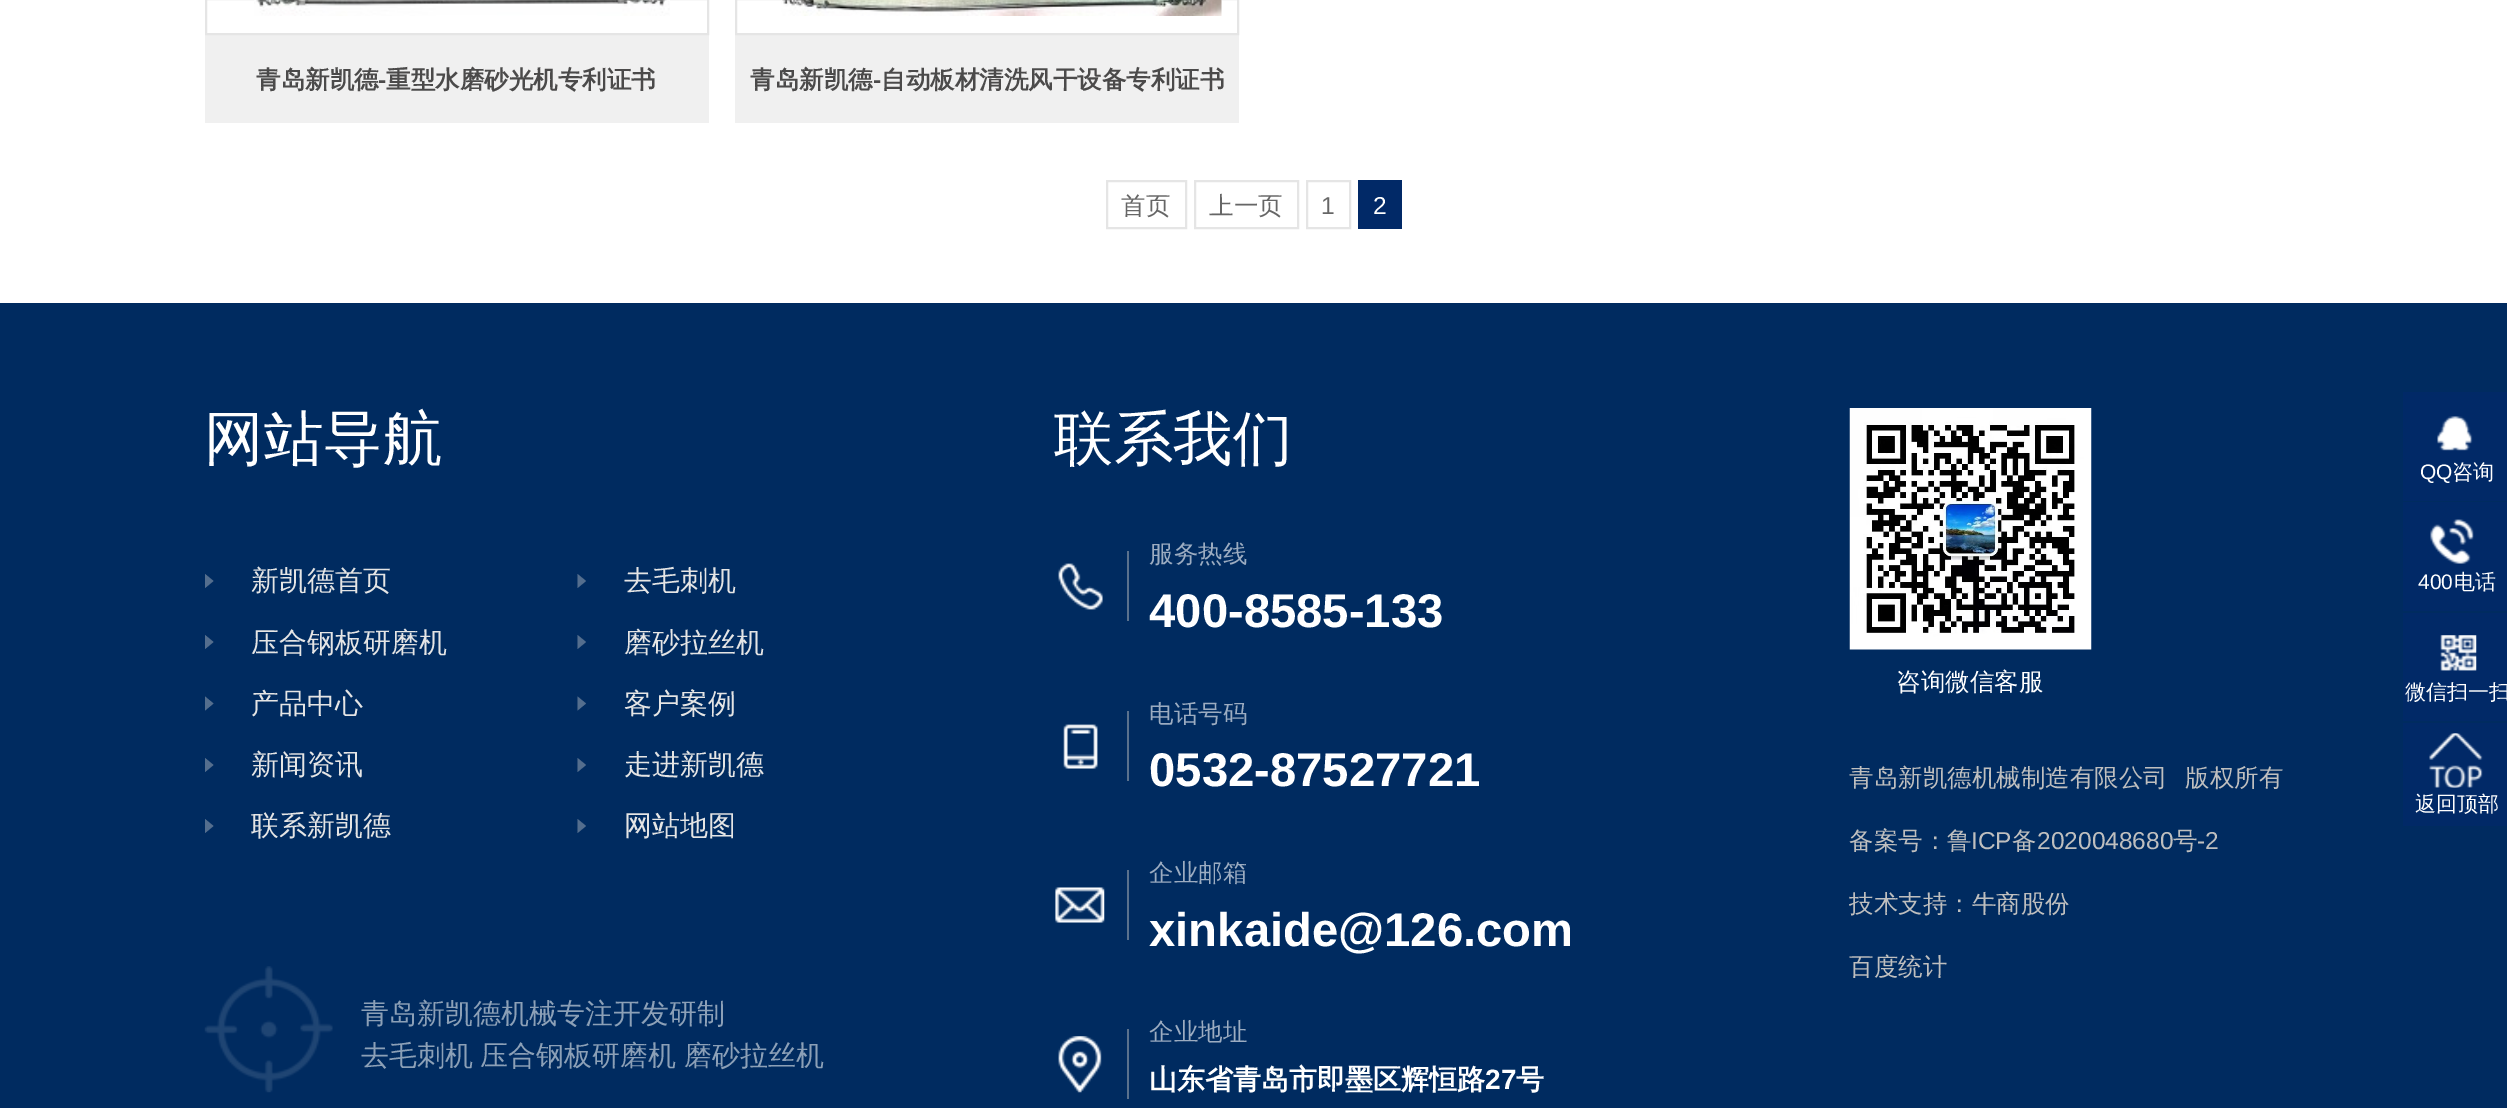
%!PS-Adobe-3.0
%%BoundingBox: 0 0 2507 1108
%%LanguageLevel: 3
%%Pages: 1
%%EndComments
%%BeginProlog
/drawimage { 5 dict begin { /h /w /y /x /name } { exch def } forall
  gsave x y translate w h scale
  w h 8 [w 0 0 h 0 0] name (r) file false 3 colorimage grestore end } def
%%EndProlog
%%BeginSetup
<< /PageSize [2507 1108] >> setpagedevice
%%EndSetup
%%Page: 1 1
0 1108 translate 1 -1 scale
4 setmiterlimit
1 setgray
0 0 2507 1108 rectfill
0.941 setgray
205 35 504 88 rectfill
0.898 setgray
2 setlinewidth
206 -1 502 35 rectstroke
(images/1.raw) 254 0 416 16 drawimage
0.941 setgray
735 35 504 88 rectfill
0.898 setgray
736 -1 502 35 rectstroke
(images/2.raw) 781 0 441 16 drawimage
1107 181 79 47 rectstroke
1195 181 103 47 rectstroke
1307 181 43 47 rectstroke
0.004 0.161 0.404 setrgbcolor
1358 180 44 49 rectfill
0 0.169 0.376 setrgbcolor
0 303 2507 805 rectfill
0.329 0.431 0.557 setrgbcolor
newpath 205 588 moveto 205 574 lineto 213.5 581 lineto closepath fill
newpath 577.5 588 moveto 577.5 574 lineto 586 581 lineto closepath fill
newpath 205 649 moveto 205 635 lineto 213.5 642 lineto closepath fill
newpath 577.5 649 moveto 577.5 635 lineto 586 642 lineto closepath fill
newpath 205 710.5 moveto 205 696.5 lineto 213.5 703.5 lineto closepath fill
newpath 577.5 710.5 moveto 577.5 696.5 lineto 586 703.5 lineto closepath fill
newpath 205 772 moveto 205 758 lineto 213.5 765 lineto closepath fill
newpath 577.5 772 moveto 577.5 758 lineto 586 765 lineto closepath fill
newpath 205 833 moveto 205 819 lineto 213.5 826 lineto closepath fill
newpath 577.5 833 moveto 577.5 819 lineto 586 826 lineto closepath fill
(images/3.raw) 204 966 129 127 drawimage
0.353 0.443 0.553 setrgbcolor
1127 551 2 70 rectfill
(images/4.raw) 1058 563 45 47 drawimage
1127 711 2 70 rectfill
(images/5.raw) 1063 724 35 45 drawimage
1127 870 2 70 rectfill
(images/6.raw) 1055 887 50 36 drawimage
1127 1029 2 70 rectfill
(images/7.raw) 1058 1036 44 57 drawimage
(images/8.raw) 1849 408 243 242 drawimage
0.004 0.161 0.404 setrgbcolor
2403 392 104 109 rectfill
(images/9.raw) 2437 416 36 35 drawimage
2403 502 104 109 rectfill
(images/10.raw) 2430 519 44 45 drawimage
2403 613 104 108 rectfill
(images/11.raw) 2440 635 37 36 drawimage
2403 723 104 103 rectfill
(images/12.raw) 2429 733 54 55 drawimage
/WenQuanYiZenHei-Bold [24.5 0 0 -24.5 0 0] selectfont
0.294 0.29 0.29 setrgbcolor
256 88 moveto (青岛新凯德) show
/LiberationSans-Bold [24.5 0 0 -24.5 0 0] selectfont
378 88 moveto (-) show
/WenQuanYiZenHei-Bold [24.5 0 0 -24.5 0 0] selectfont
386 88 moveto (重型水磨砂光机专利证书) show
750 88 moveto (青岛新凯德) show
/LiberationSans-Bold [24.5 0 0 -24.5 0 0] selectfont
873 88 moveto (-) show
/WenQuanYiZenHei-Bold [24.5 0 0 -24.5 0 0] selectfont
881 88 moveto (自动板材清洗风干设备专利证书) show
/WenQuanYiZenHei-Medium [24.5 0 0 -24.5 0 0] selectfont
0.4 setgray
1121 214 moveto (首页) show
1209 214 moveto (上一页) show
/LiberationSans-Regular [24.5 0 0 -24.5 0 0] selectfont
1321 214 moveto (1) show
1 setgray
1373 214 moveto (2) show
/WenQuanYiZenHei-Medium [59.5 0 0 -59.5 0 0] selectfont
204 459 moveto (网站导航) show
/WenQuanYiZenHei-Medium [28 0 0 -28 0 0] selectfont
0.898 setgray
251 590 moveto (新凯德首页) show
624 590 moveto (去毛刺机) show
251 652 moveto (压合钢板研磨机) show
624 652 moveto (磨砂拉丝机) show
251 713 moveto (产品中心) show
624 713 moveto (客户案例) show
251 774 moveto (新闻资讯) show
624 774 moveto (走进新凯德) show
251 835 moveto (联系新凯德) show
624 835 moveto (网站地图) show
0.549 0.627 0.718 setrgbcolor
361 1023 moveto (青岛新凯德机械专注开发研制) show
361 1065 moveto -1 0 32 (去毛刺机 压合钢板研磨机 磨砂拉丝机) widthshow
/WenQuanYiZenHei-Medium [59.5 0 0 -59.5 0 0] selectfont
1 setgray
1054 459 moveto (联系我们) show
/WenQuanYiZenHei-Medium [24.5 0 0 -24.5 0 0] selectfont
0.612 0.675 0.757 setrgbcolor
1149 562 moveto (服务热线) show
/LiberationSans-Bold [47.25 0 0 -47.25 0 0] selectfont
1 setgray
1149 627 moveto (400-8585-133) show
/WenQuanYiZenHei-Medium [24.5 0 0 -24.5 0 0] selectfont
0.612 0.675 0.757 setrgbcolor
1149 722 moveto (电话号码) show
/LiberationSans-Bold [47.25 0 0 -47.25 0 0] selectfont
1 setgray
1149 786 moveto (0532-87527721) show
/WenQuanYiZenHei-Medium [24.5 0 0 -24.5 0 0] selectfont
0.612 0.675 0.757 setrgbcolor
1149 881 moveto (企业邮箱) show
/LiberationSans-Bold [47.25 0 0 -47.25 0 0] selectfont
1 setgray
1149 946 moveto (xinkaide@126.com) show
/WenQuanYiZenHei-Medium [24.5 0 0 -24.5 0 0] selectfont
0.612 0.675 0.757 setrgbcolor
1149 1040 moveto (企业地址) show
/WenQuanYiZenHei-Bold [28 0 0 -28 0 0] selectfont
1 setgray
1149 1089 moveto (山东省青岛市即墨区辉恒路) show
/LiberationSans-Bold [28 0 0 -28 0 0] selectfont
1485 1089 moveto (27) show
/WenQuanYiZenHei-Bold [28 0 0 -28 0 0] selectfont
1516 1089 moveto (号) show
/WenQuanYiZenHei-Medium [24.5 0 0 -24.5 0 0] selectfont
1896 690 moveto (咨询微信客服) show
0.749 setgray
1849 786 moveto (青岛新凯德机械制造有限公司) show
2185 786 moveto (版权所有) show
1849 849 moveto (备案号：鲁) show
/LiberationSans-Regular [24.5 0 0 -24.5 0 0] selectfont
1971 849 moveto (ICP) show
/WenQuanYiZenHei-Medium [24.5 0 0 -24.5 0 0] selectfont
2012 849 moveto (备) show
/LiberationSans-Regular [24.5 0 0 -24.5 0 0] selectfont
2037 849 moveto (2020048680) show
/WenQuanYiZenHei-Medium [24.5 0 0 -24.5 0 0] selectfont
2173 849 moveto (号) show
/LiberationSans-Regular [24.5 0 0 -24.5 0 0] selectfont
2197 849 moveto (-2) show
/WenQuanYiZenHei-Medium [24.5 0 0 -24.5 0 0] selectfont
1849 912 moveto (技术支持：牛商股份) show
1849 975 moveto (百度统计) show
/LiberationSans-Regular [21 0 0 -21 0 0] selectfont
1 setgray
2420 479 moveto (QQ) show
/WenQuanYiZenHei-Medium [21 0 0 -21 0 0] selectfont
2452 479 moveto (咨询) show
/LiberationSans-Regular [21 0 0 -21 0 0] selectfont
2418 589 moveto (400) show
/WenQuanYiZenHei-Medium [21 0 0 -21 0 0] selectfont
2454 589 moveto (电话) show
2405 699 moveto (微信扫一扫) show
2415 811 moveto (返回顶部) show
showpage
%%EOF
